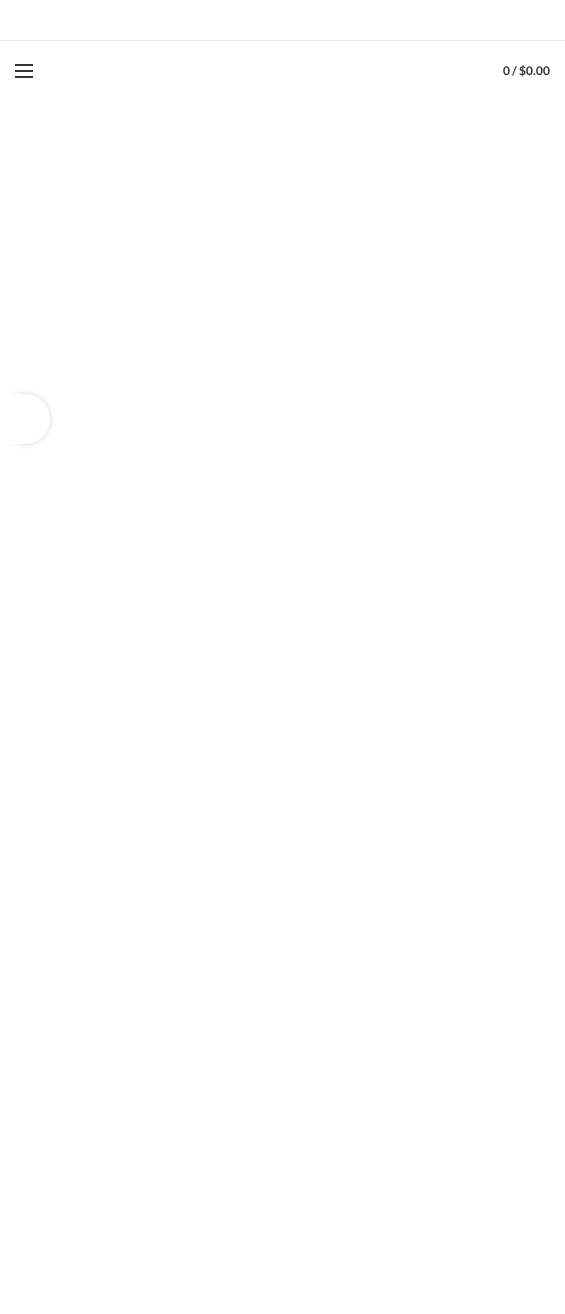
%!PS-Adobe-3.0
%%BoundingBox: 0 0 565 1314
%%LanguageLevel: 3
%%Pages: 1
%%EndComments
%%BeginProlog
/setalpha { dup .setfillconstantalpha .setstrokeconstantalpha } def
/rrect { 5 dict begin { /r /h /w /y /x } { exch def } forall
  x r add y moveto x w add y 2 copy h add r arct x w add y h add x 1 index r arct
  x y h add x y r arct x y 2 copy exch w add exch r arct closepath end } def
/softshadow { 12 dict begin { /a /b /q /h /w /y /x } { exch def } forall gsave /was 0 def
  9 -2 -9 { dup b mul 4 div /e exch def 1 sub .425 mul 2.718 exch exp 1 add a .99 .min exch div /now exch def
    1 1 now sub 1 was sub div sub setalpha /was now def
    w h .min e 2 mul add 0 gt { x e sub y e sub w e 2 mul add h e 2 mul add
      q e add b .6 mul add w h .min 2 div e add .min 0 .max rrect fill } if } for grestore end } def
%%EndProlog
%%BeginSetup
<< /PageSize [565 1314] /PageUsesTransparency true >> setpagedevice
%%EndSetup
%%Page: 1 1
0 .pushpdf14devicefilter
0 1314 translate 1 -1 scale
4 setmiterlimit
1 setgray
0 0 565 1314 rectfill
0.91 setgray
0 40 565 1 rectfill
0.2 setgray
15 70 18 2 rectfill
15 64 18 2 rectfill
15 76 18 2 rectfill
gsave
newpath 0 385 moveto 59 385 lineto 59 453 lineto 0 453 lineto closepath 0 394 moveto 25 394 lineto 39 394 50 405 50 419 curveto 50 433 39 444 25 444 curveto 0 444 lineto closepath eoclip newpath
0 setgray
0 394 50 50 25 2.5 0.17 softshadow
grestore
0.9 setalpha
1 setgray
newpath 0 394 moveto 25 394 lineto 39 394 50 405 50 419 curveto 50 433 39 444 25 444 curveto 0 444 lineto closepath fill
/Lato-Bold [12 0 0 -12 0 0] selectfont
1 setalpha
0.2 setgray
503 75 moveto (0 / $0.00) show
.poppdf14devicefilter showpage
%%EOF
